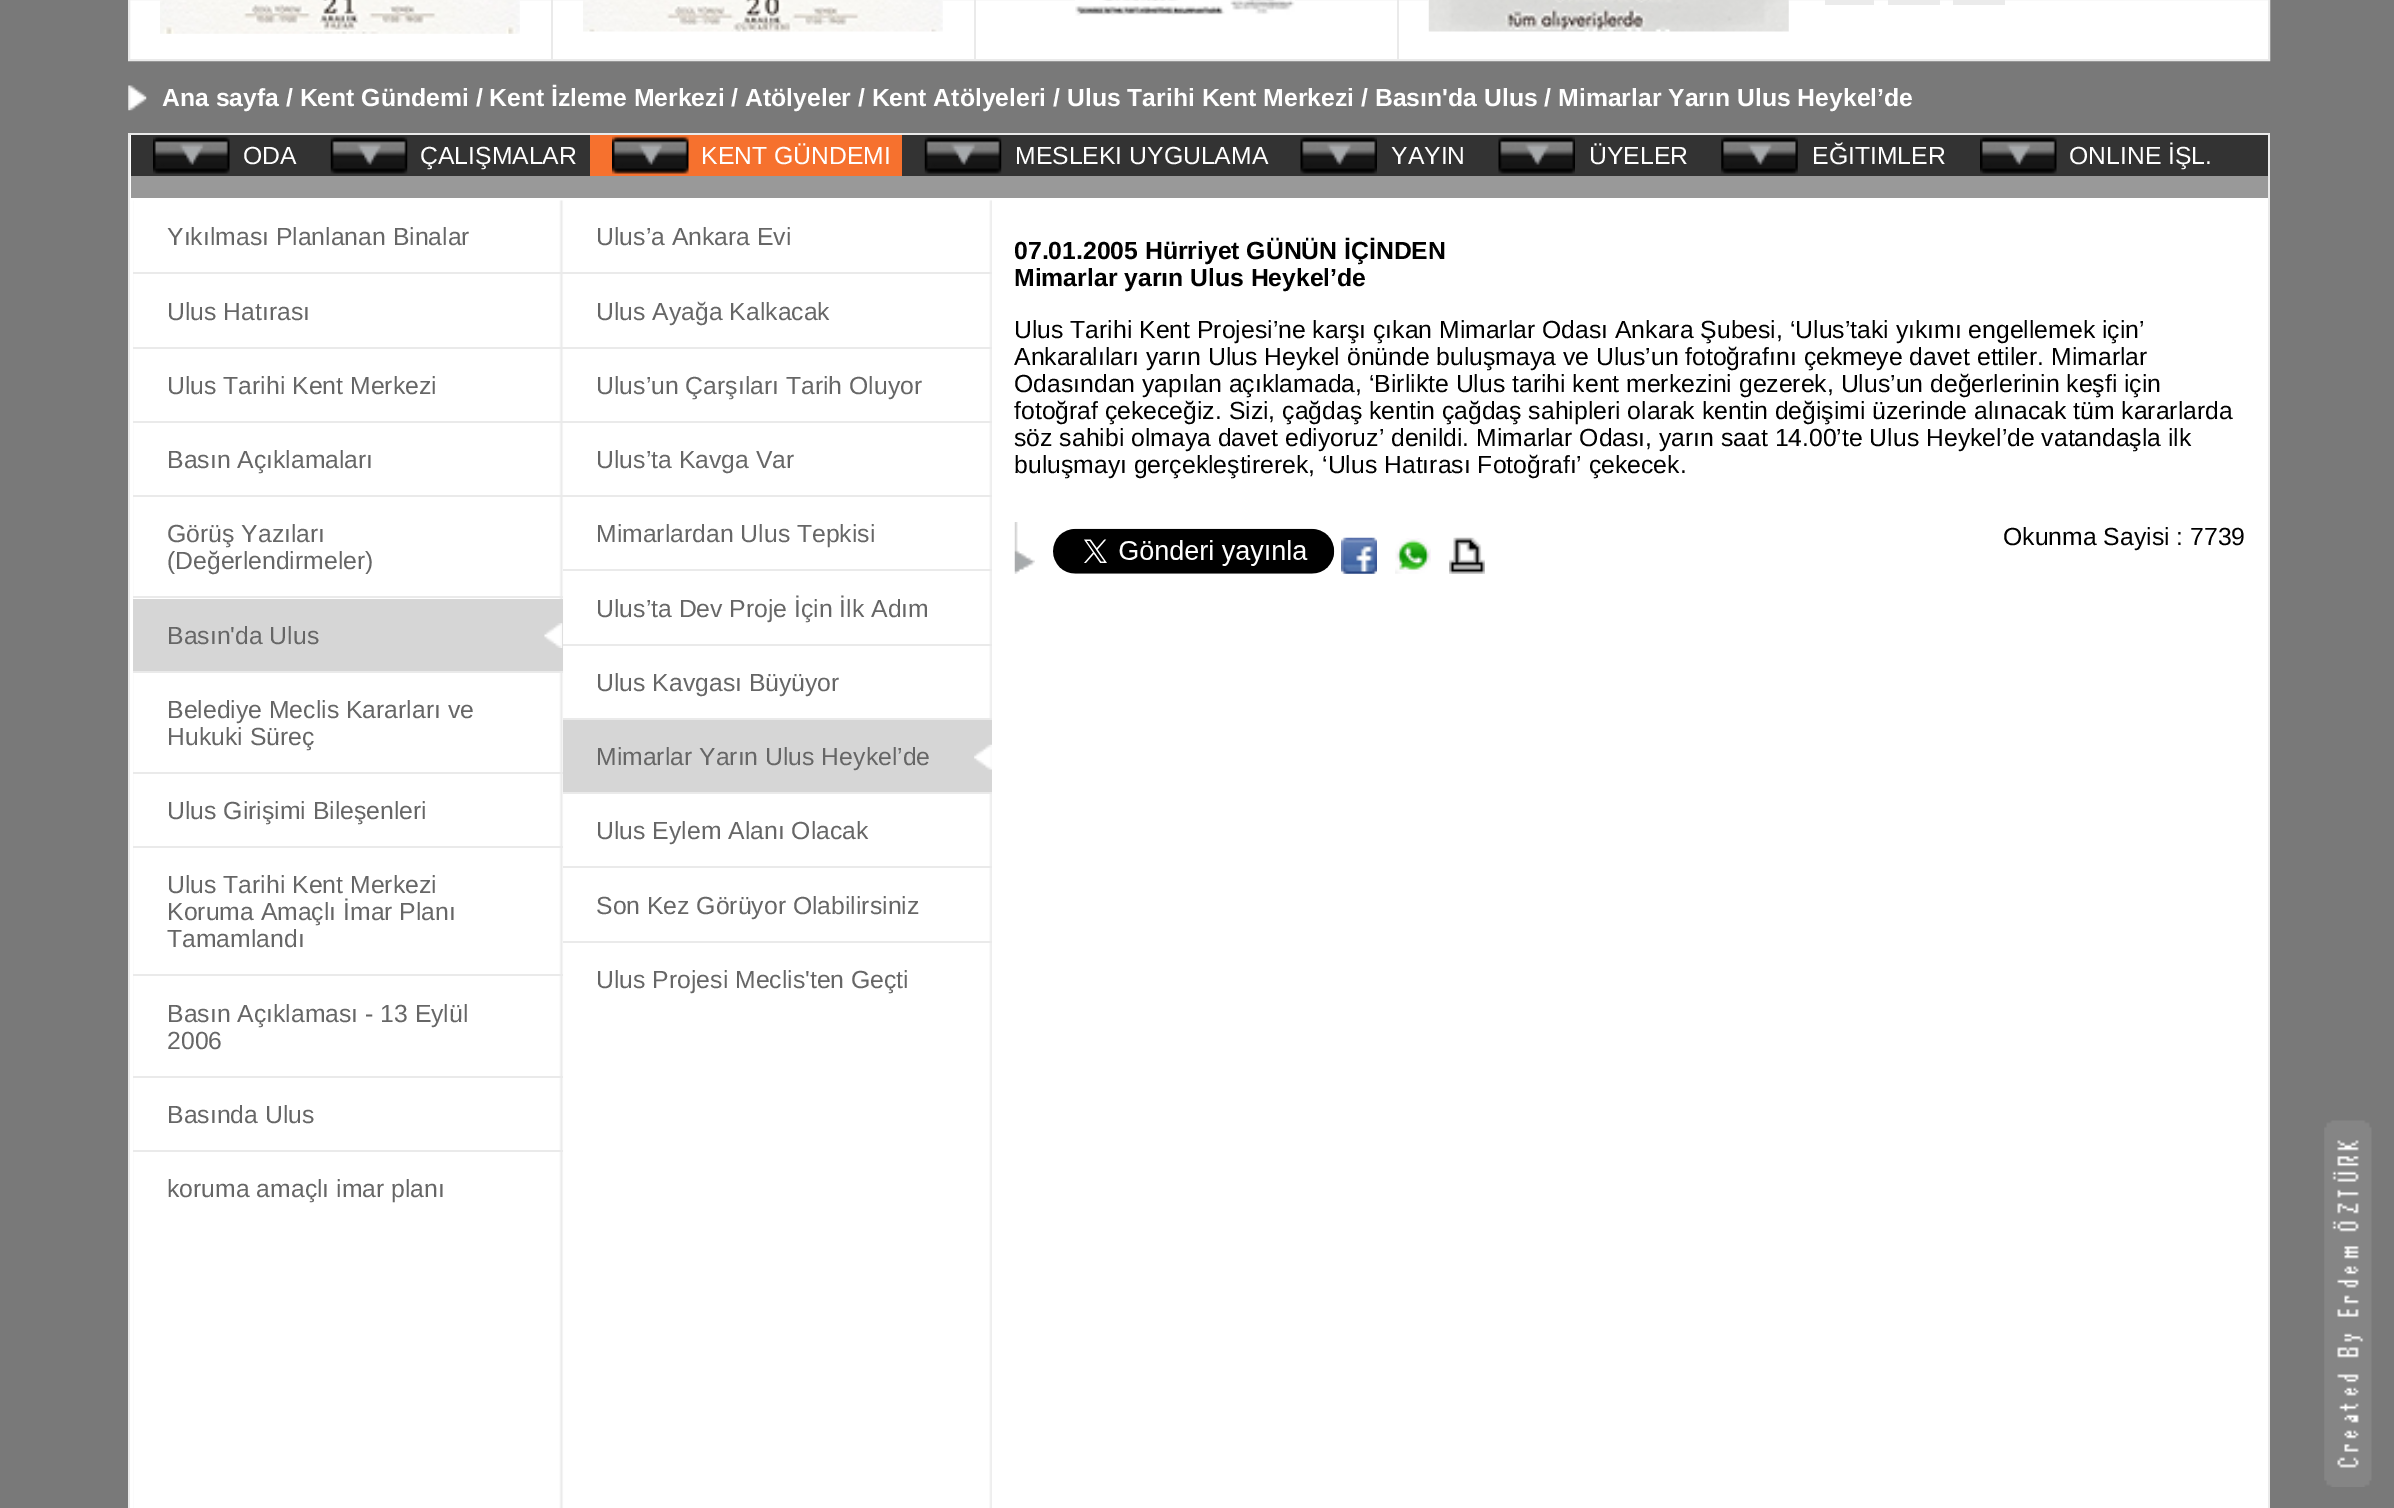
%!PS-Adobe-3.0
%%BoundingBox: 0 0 2394 1508
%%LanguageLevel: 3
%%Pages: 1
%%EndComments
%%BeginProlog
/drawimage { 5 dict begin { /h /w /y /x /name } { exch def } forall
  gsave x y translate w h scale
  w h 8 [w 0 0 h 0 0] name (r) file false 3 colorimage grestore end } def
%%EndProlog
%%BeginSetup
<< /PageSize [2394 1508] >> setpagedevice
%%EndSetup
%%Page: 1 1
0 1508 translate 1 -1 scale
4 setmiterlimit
0.475 setgray
0 0 2394 1508 rectfill
1 setgray
newpath 129 -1 moveto 2269 -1 lineto 2269 60 lineto 129 60 lineto closepath gsave fill grestore
0.918 setgray
2 setlinewidth
stroke
551 0 2 59 rectfill
(images/1.raw) 160 0 360 34 drawimage
974 0 2 59 rectfill
(images/2.raw) 583 0 360 32 drawimage
1397 0 2 59 rectfill
(images/3.raw) 1075 0 220 16 drawimage
(images/4.raw) 1428 0 361 32 drawimage
0.922 setgray
1825 0 49 5 rectfill
1888 0 52 5 rectfill
1953 0 52 5 rectfill
(images/5.raw) 128 85 19 26 drawimage
1 setgray
130 135 2138 1373 rectfill
0.918 setgray
128 133 2142 2 rectfill
2268 133 2 1375 rectfill
128 133 2 1375 rectfill
0.2 setgray
131 135 2137 41 rectfill
(images/6.raw) 153 136 77 38 drawimage
(images/7.raw) 330 136 78 38 drawimage
0.965 0.443 0.18 setrgbcolor
590 135 312 41 rectfill
(images/8.raw) 612 136 77 38 drawimage
(images/9.raw) 924 136 78 38 drawimage
(images/10.raw) 1300 136 77 38 drawimage
(images/11.raw) 1498 136 77 38 drawimage
(images/12.raw) 1721 136 77 38 drawimage
(images/6.raw) 1980 136 77 38 drawimage
0.6 setgray
131 176 2137 22 rectfill
(images/13.raw) 133 200 859 1308 drawimage
0.918 setgray
133 272 859 2 rectfill
133 347 859 2 rectfill
133 421 859 2 rectfill
133 495 859 2 rectfill
133 596 430 2 rectfill
0.839 setgray
133 599 430 72 rectfill
(images/14.raw) 544 623 19 25 drawimage
0.918 setgray
133 671 430 2 rectfill
133 772 430 2 rectfill
133 846 430 2 rectfill
133 974 430 2 rectfill
133 1076 430 2 rectfill
133 1150 430 2 rectfill
563 569 429 2 rectfill
563 644 429 2 rectfill
563 718 429 2 rectfill
0.839 setgray
563 720 429 72 rectfill
(images/15.raw) 974 744 18 26 drawimage
0.918 setgray
563 792 429 2 rectfill
563 866 429 2 rectfill
563 941 429 2 rectfill
(images/16.raw) 1014 522 21 52 drawimage
(images/17.raw) 1053 528 282 46 drawimage
(images/18.raw) 1341 537 36 37 drawimage
(images/19.raw) 1395 538 36 36 drawimage
(images/20.raw) 1449 537 36 37 drawimage
(images/21.raw) 2324 1120 48 367 drawimage
/LiberationSans-Bold [24.75 0 0 -24.75 0 0] selectfont
1 setgray
162 106 moveto (Ana sayfa / Kent Gündemi / Kent İzleme Merkezi / Atölyeler / Kent Atölyeleri / Ulus Tarihi Kent Merkezi / Basın'da Ulus / Mimarlar Yarın Ulus Heykel’de) show
/LiberationSans-Regular [24.75 0 0 -24.75 0 0] selectfont
243 164 moveto (ODA) show
420 164 moveto (ÇALIŞMALAR) show
701 164 moveto (KENT GÜNDEMI) show
1015 164 moveto (MESLEKI UYGULAMA) show
1391 164 moveto (YAYIN) show
1589 164 moveto (ÜYELER) show
1812 164 moveto (EĞITIMLER) show
2069 164 moveto (ONLINE İŞL.) show
0.4 setgray
167 245 moveto (Yıkılması Planlanan Binalar) show
167 320 moveto (Ulus Hatırası) show
167 394 moveto (Ulus Tarihi Kent Merkezi) show
167 468 moveto (Basın Açıklamaları) show
167 542 moveto (Görüş Yazıları) show
167 569 moveto (\(Değerlendirmeler\)) show
167 644 moveto (Basın'da Ulus) show
167 718 moveto (Belediye Meclis Kararları ve) show
167 745 moveto (Hukuki Süreç) show
167 819 moveto (Ulus Girişimi Bileşenleri) show
167 893 moveto (Ulus Tarihi Kent Merkezi) show
167 920 moveto (Koruma Amaçlı İmar Planı) show
167 947 moveto (Tamamlandı) show
167 1022 moveto (Basın Açıklaması - 13 Eylül) show
167 1049 moveto (2006) show
167 1123 moveto (Basında Ulus) show
167 1197 moveto (koruma amaçlı imar planı) show
596 245 moveto (Ulus’a Ankara Evi) show
596 320 moveto (Ulus Ayağa Kalkacak) show
596 394 moveto (Ulus’un Çarşıları Tarih Oluyor) show
596 468 moveto (Ulus’ta Kavga Var) show
596 542 moveto (Mimarlardan Ulus Tepkisi) show
596 617 moveto (Ulus’ta Dev Proje İçin İlk Adım) show
596 691 moveto (Ulus Kavgası Büyüyor) show
596 765 moveto (Mimarlar Yarın Ulus Heykel’de) show
596 839 moveto (Ulus Eylem Alanı Olacak) show
596 914 moveto (Son Kez Görüyor Olabilirsiniz) show
596 988 moveto (Ulus Projesi Meclis'ten Geçti) show
/LiberationSans-Bold [24.75 0 0 -24.75 0 0] selectfont
0 setgray
1014 259 moveto (07.01.2005 Hürriyet GÜNÜN İÇİNDEN) show
1014 286 moveto (Mimarlar yarın Ulus Heykel’de) show
/LiberationSans-Regular [24.75 0 0 -24.75 0 0] selectfont
1014 338 moveto (Ulus Tarihi Kent Projesi’ne karşı çıkan Mimarlar Odası Ankara Şubesi, ‘Ulus’taki yıkımı engellemek için’) show
1014 365 moveto (Ankaralıları yarın Ulus Heykel önünde buluşmaya ve Ulus’un fotoğrafını çekmeye davet ettiler. Mimarlar) show
1014 392 moveto (Odasından yapılan açıklamada, ‘Birlikte Ulus tarihi kent merkezini gezerek, Ulus’un değerlerinin keşfi için) show
1014 419 moveto (fotoğraf çekeceğiz. Sizi, çağdaş kentin çağdaş sahipleri olarak kentin değişimi üzerinde alınacak tüm kararlarda) show
1014 446 moveto (söz sahibi olmaya davet ediyoruz’ denildi. Mimarlar Odası, yarın saat 14.00’te Ulus Heykel’de vatandaşla ilk) show
1014 473 moveto (buluşmayı gerçekleştirerek, ‘Ulus Hatırası Fotoğrafı’ çekecek.) show
2003 545 moveto (Okunma Sayisi : 7739) show
showpage
%%EOF
